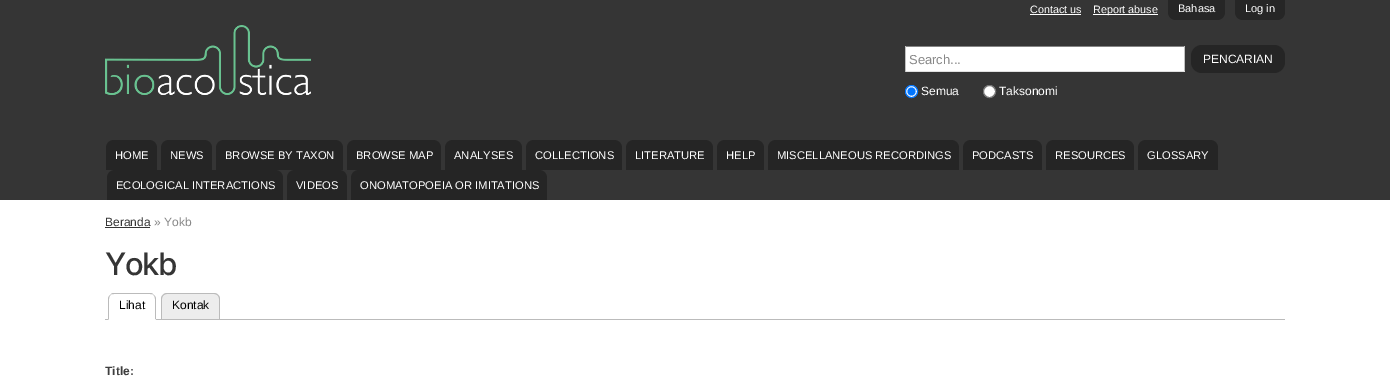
%!PS-Adobe-3.0
%%BoundingBox: 0 0 1390 376
%%LanguageLevel: 3
%%Pages: 1
%%EndComments
%%BeginProlog
/rrect { 5 dict begin { /r /h /w /y /x } { exch def } forall
  x r add y moveto x w add y 2 copy h add r arct x w add y h add x 1 index r arct
  x y h add x y r arct x y 2 copy exch w add exch r arct closepath end } def
/drawimage { 5 dict begin { /h /w /y /x /name } { exch def } forall
  gsave x y translate w h scale
  w h 8 [w 0 0 h 0 0] name (r) file false 3 colorimage grestore end } def
%%EndProlog
%%BeginSetup
<< /PageSize [1390 376] >> setpagedevice
%%EndSetup
%%Page: 1 1
0 376 translate 1 -1 scale
4 setmiterlimit
1 setgray
0 0 1390 376 rectfill
0.208 setgray
0 0 1390 200 rectfill
0.149 setgray
newpath 1168 0 moveto 1225 0 lineto 1225 12 lineto 1225 16.5 1221.5 20 1217 20 curveto 1176 20 lineto 1171.5 20 1168 16.5 1168 12 curveto closepath fill
newpath 1235 0 moveto 1285 0 lineto 1285 12 lineto 1285 16.5 1281.5 20 1277 20 curveto 1243 20 lineto 1238.5 20 1235 16.5 1235 12 curveto closepath fill
1 setgray
1030 14 51 1 rectfill
1093 14 65 1 rectfill
(images/1.raw) 105 25 206 70 drawimage
906 47 278 24 rectfill
0.518 setgray
905 46 280 1 rectfill
0.757 setgray
1184 46 1 26 rectfill
0.882 setgray
905 71 280 1 rectfill
0.757 setgray
905 46 1 26 rectfill
0.145 setgray
1191 45 94 28 11 rrect fill
1 setgray
newpath 911.5 91.5 6 0 360 arc closepath gsave fill grestore
0 0.459 1 setrgbcolor
stroke
newpath 911.5 91.5 4 0 360 arc closepath fill
1 setgray
newpath 989.5 91.5 6 0 360 arc closepath gsave fill grestore
0.463 setgray
stroke
0.145 setgray
newpath 114 140 moveto 149 140 lineto 153.5 140 157 143.5 157 148 curveto 157 170 lineto 106 170 lineto 106 148 lineto 106 143.5 109.5 140 114 140 curveto closepath fill
newpath 169 140 moveto 204 140 lineto 208.5 140 212 143.5 212 148 curveto 212 170 lineto 161 170 lineto 161 148 lineto 161 143.5 164.5 140 169 140 curveto closepath fill
newpath 224 140 moveto 335 140 lineto 339.5 140 343 143.5 343 148 curveto 343 170 lineto 216 170 lineto 216 148 lineto 216 143.5 219.5 140 224 140 curveto closepath fill
newpath 355 140 moveto 433 140 lineto 437.5 140 441 143.5 441 148 curveto 441 170 lineto 347 170 lineto 347 148 lineto 347 143.5 350.5 140 355 140 curveto closepath fill
newpath 453 140 moveto 514 140 lineto 518.5 140 522 143.5 522 148 curveto 522 170 lineto 445 170 lineto 445 148 lineto 445 143.5 448.5 140 453 140 curveto closepath fill
newpath 534 140 moveto 614 140 lineto 618.5 140 622 143.5 622 148 curveto 622 170 lineto 526 170 lineto 526 148 lineto 526 143.5 529.5 140 534 140 curveto closepath fill
newpath 634 140 moveto 705 140 lineto 709.5 140 713 143.5 713 148 curveto 713 170 lineto 626 170 lineto 626 148 lineto 626 143.5 629.5 140 634 140 curveto closepath fill
newpath 725 140 moveto 756 140 lineto 760.5 140 764 143.5 764 148 curveto 764 170 lineto 717 170 lineto 717 148 lineto 717 143.5 720.5 140 725 140 curveto closepath fill
newpath 776 140 moveto 951 140 lineto 955.5 140 959 143.5 959 148 curveto 959 170 lineto 768 170 lineto 768 148 lineto 768 143.5 771.5 140 776 140 curveto closepath fill
newpath 971 140 moveto 1034 140 lineto 1038.5 140 1042 143.5 1042 148 curveto 1042 170 lineto 963 170 lineto 963 148 lineto 963 143.5 966.5 140 971 140 curveto closepath fill
newpath 1054 140 moveto 1126 140 lineto 1130.5 140 1134 143.5 1134 148 curveto 1134 170 lineto 1046 170 lineto 1046 148 lineto 1046 143.5 1049.5 140 1054 140 curveto closepath fill
newpath 1146 140 moveto 1210 140 lineto 1214.5 140 1218 143.5 1218 148 curveto 1218 170 lineto 1138 170 lineto 1138 148 lineto 1138 143.5 1141.5 140 1146 140 curveto closepath fill
newpath 115 170 moveto 275 170 lineto 279.5 170 283 173.5 283 178 curveto 283 200 lineto 107 200 lineto 107 178 lineto 107 173.5 110.5 170 115 170 curveto closepath fill
newpath 295 170 moveto 339 170 lineto 343.5 170 347 173.5 347 178 curveto 347 200 lineto 287 200 lineto 287 178 lineto 287 173.5 290.5 170 295 170 curveto closepath fill
newpath 359 170 moveto 539 170 lineto 543.5 170 547 173.5 547 178 curveto 547 200 lineto 351 200 lineto 351 178 lineto 351 173.5 354.5 170 359 170 curveto closepath fill
0.208 setgray
105 227 45 1 rectfill
0.733 setgray
105 319 1180 1 rectfill
1 setgray
newpath 114 293 moveto 150 293 lineto 153.5 293 156 295.5 156 299 curveto 156 320 lineto 108 320 lineto 108 299 lineto 108 295.5 110.5 293 114 293 curveto closepath fill
0.733 setgray
newpath 114 293 moveto 112 293 111 294 110 295 curveto 111 294 112 294 114 294 curveto 150 294 lineto 152 294 153 294 154 295 curveto 153 294 152 293 150 293 curveto closepath 156 320 moveto 156 299 lineto 156 297.5 155 296 154 295 curveto 153.5 295.5 lineto 154.5 296 155 297.5 155 299 curveto 155 319 lineto closepath fill
1 setgray
newpath 156 320 moveto 155 319 lineto 109 319 lineto 108 320 lineto closepath fill
0.733 setgray
newpath 108 320 moveto 109 319 lineto 109 299 lineto 109 297.5 109.5 296 110.5 295.5 curveto 110 295 lineto 109 296 108 297.5 108 299 curveto closepath fill
0.929 setgray
newpath 167 293 moveto 214 293 lineto 217.5 293 220 295.5 220 299 curveto 220 319 lineto 161 319 lineto 161 299 lineto 161 295.5 163.5 293 167 293 curveto closepath fill
0.733 setgray
newpath 167 293 moveto 214 293 lineto 217 293 220 296 220 299 curveto 220 319 lineto 161 319 lineto 161 299 lineto 161 296 164 293 167 293 curveto closepath 167 294 moveto 214 294 lineto 217 294 219 296 219 299 curveto 219 319 lineto 162 319 lineto 162 299 lineto 162 296 164 294 167 294 curveto closepath eofill
/LiberationSans-Regular [11 0 0 -11 0 0] selectfont
1 setgray
1178 12 moveto (Bahasa) show
1245 12 moveto (Log in) show
/LiberationSans-Regular [10.75 0 0 -10.75 0 0] selectfont
1030 13 moveto (Contact us) show
1093 13 moveto (Report abuse) show
/LiberationSans-Regular [13 0 0 -13 0 0] selectfont
0.533 setgray
909 64 moveto (Search...) show
/LiberationSans-Regular [12 0 0 -12 0 0] selectfont
1 setgray
1203 63 moveto (PENCARIAN) show
921 95 moveto (Semua) show
999 95 moveto (Taksonomi) show
/LiberationSans-Regular [11.2 0 0 -11.2 0 0] selectfont
115 159 moveto (HOME) show
170 159 moveto (NEWS) show
225 159 moveto (BROWSE BY TAXON) show
356 159 moveto (BROWSE MAP) show
454 159 moveto (ANALYSES) show
535 159 moveto (COLLECTIONS) show
635 159 moveto (LITERATURE) show
726 159 moveto (HELP) show
777 159 moveto (MISCELLANEOUS RECORDINGS) show
972 159 moveto (PODCASTS) show
1055 159 moveto (RESOURCES) show
1147 159 moveto (GLOSSARY) show
116 189 moveto (ECOLOGICAL INTERACTIONS) show
296 189 moveto (VIDEOS) show
360 189 moveto (ONOMATOPOEIA OR IMITATIONS) show
/LiberationSans-Regular [12 0 0 -12 0 0] selectfont
0.208 setgray
105 226 moveto (Beranda) show
0.533 setgray
154 226 moveto (» Yokb) show
/Inter-Medium [31 0 0 -31 0 0] selectfont
0.208 setgray
105 275 moveto -1.5 0 (Yokb) ashow
/LiberationSans-Regular [12 0 0 -12 0 0] selectfont
0 setgray
119 309 moveto (Lihat) show
172 309 moveto (Kontak) show
/LiberationSans-Bold [12 0 0 -12 0 0] selectfont
0.243 setgray
105 375 moveto (Title:) show
showpage
%%EOF
